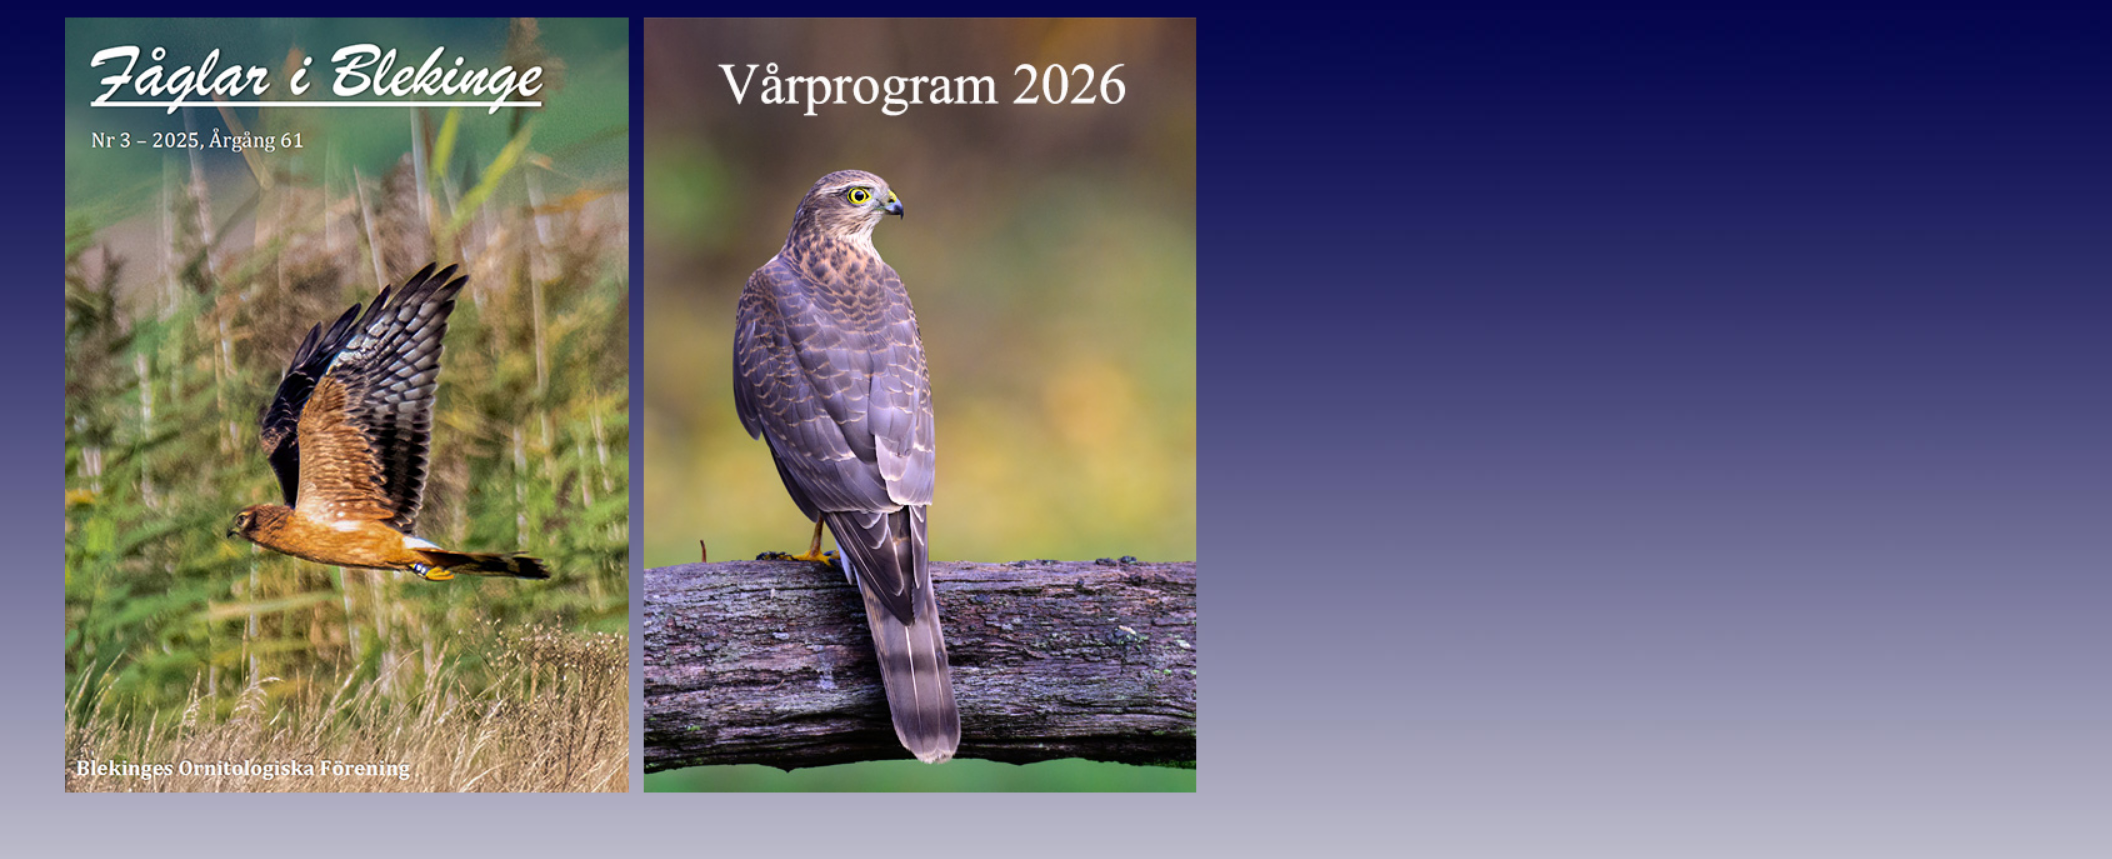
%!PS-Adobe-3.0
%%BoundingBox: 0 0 2112 859
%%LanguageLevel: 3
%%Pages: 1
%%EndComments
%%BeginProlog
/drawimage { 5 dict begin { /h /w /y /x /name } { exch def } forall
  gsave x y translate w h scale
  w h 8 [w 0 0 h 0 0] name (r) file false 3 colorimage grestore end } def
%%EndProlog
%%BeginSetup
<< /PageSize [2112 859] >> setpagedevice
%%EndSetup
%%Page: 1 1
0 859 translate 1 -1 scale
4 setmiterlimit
1 setgray
0 0 2112 859 rectfill
(images/1.raw) 0 0 2112 859 drawimage
(images/2.raw) 65 17 564 776 drawimage
(images/3.raw) 643 17 554 776 drawimage
showpage
%%EOF
